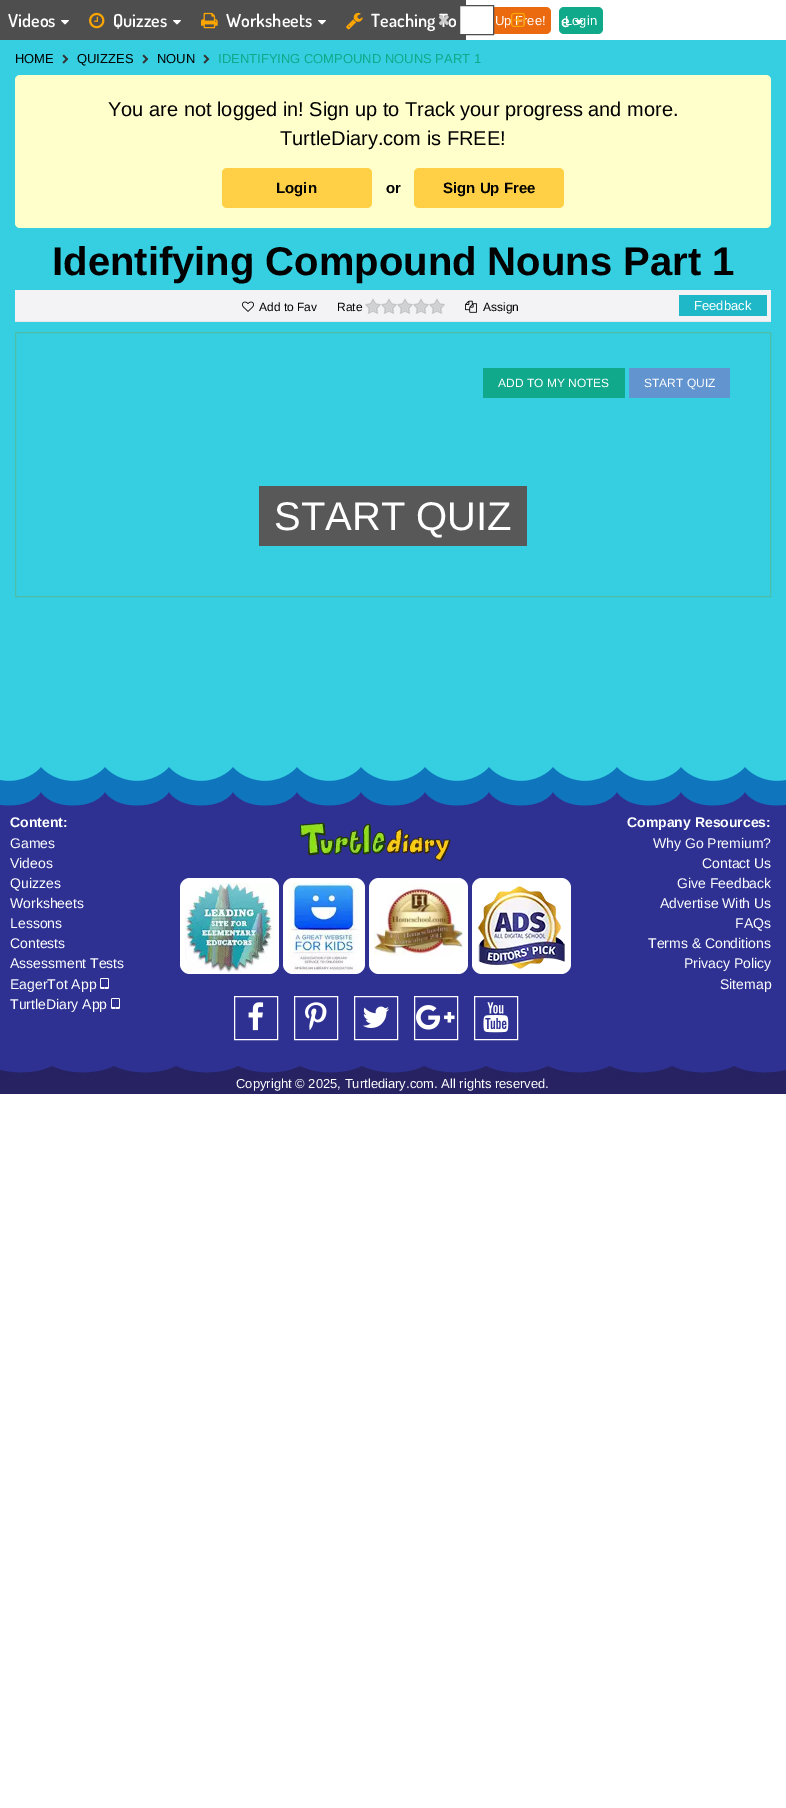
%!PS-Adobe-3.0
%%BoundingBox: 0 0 786 1808
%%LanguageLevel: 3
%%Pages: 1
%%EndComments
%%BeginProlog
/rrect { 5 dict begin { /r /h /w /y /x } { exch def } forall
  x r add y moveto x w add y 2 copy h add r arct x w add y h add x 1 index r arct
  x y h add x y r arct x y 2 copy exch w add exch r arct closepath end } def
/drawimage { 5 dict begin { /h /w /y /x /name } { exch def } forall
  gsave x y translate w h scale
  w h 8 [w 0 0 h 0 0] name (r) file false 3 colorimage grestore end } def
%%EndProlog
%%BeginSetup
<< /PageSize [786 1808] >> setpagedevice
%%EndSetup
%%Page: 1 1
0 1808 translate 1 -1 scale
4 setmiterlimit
1 setgray
0 0 786 1808 rectfill
0.306 setgray
0 0 466 40 rectfill
(images/1.raw) 61 20 8 5 drawimage
(images/2.raw) 89 12 16 17 drawimage
(images/1.raw) 173 20 8 5 drawimage
(images/3.raw) 201 12 17 17 drawimage
(images/1.raw) 318 20 8 5 drawimage
(images/4.raw) 346 12 17 18 drawimage
0.922 0.412 0.059 setrgbcolor
459 7 92 27 5 rrect fill
1 setgray
newpath 459.5 5.5 moveto 493.5 5.5 lineto 493.5 34.5 lineto 459.5 34.5 lineto closepath gsave fill grestore
0.306 setgray
stroke
0.063 0.663 0.541 setrgbcolor
559 7 44 27 5 rrect fill
0.208 0.812 0.882 setrgbcolor
0 40 786 741 rectfill
(images/8.raw) 62 54 7 10 drawimage
(images/8.raw) 142 54 7 10 drawimage
(images/8.raw) 203 54 7 10 drawimage
1 1 0.796 setrgbcolor
15 75 756 153 5 rrect fill
1 0.812 0.271 setrgbcolor
222 168 150 40 5 rrect fill
414 168 150 40 5 rrect fill
0.953 0.953 0.961 setrgbcolor
15 290 756 31 rectfill
(images/9.raw) 242 301 12 11 drawimage
(images/10.raw) 365 298 80 16 drawimage
(images/11.raw) 465 300 12 13 drawimage
0.122 0.722 0.788 setrgbcolor
679 295 88 21 rectfill
0.906 0.906 0.922 setrgbcolor
15 321 756 1 rectfill
0.298 0.745 0.655 setrgbcolor
15.5 332.5 755 264 rectstroke
0.063 0.663 0.545 setrgbcolor
483 368 142 30 rectfill
0.384 0.584 0.816 setrgbcolor
629 368 101 30 rectfill
0.345 setgray
259 486 268 60 rectfill
0.18 0.192 0.573 setrgbcolor
0 792 786 274 rectfill
(images/12.raw) 0 1066 786 28 drawimage
(images/13.raw) 0 767 786 39 drawimage
(images/14.raw) 100 978 9 11 drawimage
(images/14.raw) 111 998 9 11 drawimage
(images/15.raw) 300 822 151 39 drawimage
1 setgray
180 878 99 96 10 rrect fill
(images/16.raw) 185 883 89 90 drawimage
283 878 82 96 10 rrect fill
(images/17.raw) 288 883 72 90 drawimage
369 878 99 96 10 rrect fill
(images/18.raw) 374 883 89 73 drawimage
472 878 99 96 10 rrect fill
(images/19.raw) 478 886 87 83 drawimage
234.5 996.5 43 43 rectstroke
(images/20.raw) 248 1002 16 29 drawimage
294.5 996.5 43 43 rectstroke
(images/21.raw) 305 1002 22 29 drawimage
354.5 996.5 43 43 rectstroke
(images/22.raw) 363 1006 26 22 drawimage
414.5 996.5 43 43 rectstroke
(images/23.raw) 416 1005 39 25 drawimage
474.5 996.5 43 43 rectstroke
(images/24.raw) 483 1002 26 31 drawimage
/Dosis-SemiBold [18 0 0 -18 0 0] selectfont
8 27 moveto (Videos) show
113 27 moveto (Quizzes) show
226 27 moveto (Worksheets) show
371 27 moveto (Teaching To) show
(images/7.raw) 439 15 10 11 drawimage
/LiberationSans-Regular [13 0 0 -13 0 0] selectfont
495 25 moveto (Up Free!) show
(images/5.raw) 511 12 15 15 drawimage
565 25 moveto (Login) show
(images/6.raw) 575 20 8 5 drawimage
/Dosis-SemiBold [18 0 0 -18 0 0] selectfont
561 27 moveto (e) show
/LiberationSans-Regular [13 0 0 -13 0 0] selectfont
0 setgray
15 63 moveto (HOME) show
77 63 moveto (QUIZZES) show
157 63 moveto (NOUN) show
0.063 0.663 0.541 setrgbcolor
218 63 moveto (IDENTIFYING COMPOUND NOUNS PART 1) show
/LiberationSans-Regular [20 0 0 -20 0 0] selectfont
0 setgray
108 116 moveto (You are not logged in! Sign up to Track your progress and more.) show
280 145 moveto (TurtleDiary.com is FREE!) show
/LiberationSans-Bold [15 0 0 -15 0 0] selectfont
276 193 moveto (Login) show
386 193 moveto (or) show
443 193 moveto (Sign Up Free) show
/LiberationSans-Bold [40 0 0 -40 0 0] selectfont
52 275 moveto (Identifying Compound Nouns Part 1) show
/LiberationSans-Regular [12 0 0 -12 0 0] selectfont
259 311 moveto (Add to Fav) show
337 311 moveto (Rate) show
483 311 moveto (Assign) show
/LiberationSans-Regular [13 0 0 -13 0 0] selectfont
1 setgray
694 310 moveto (Feedback) show
/LiberationSans-Regular [12 0 0 -12 0 0] selectfont
498 387 moveto (ADD TO MY NOTES) show
644 387 moveto (START QUIZ) show
/LiberationSans-Regular [40 0 0 -40 0 0] selectfont
274 530 moveto (START QUIZ) show
/LiberationSans-Bold [14 0 0 -14 0 0] selectfont
10 827 moveto (Content:) show
/LiberationSans-Regular [14 0 0 -14 0 0] selectfont
10 848 moveto (Games) show
10 868 moveto (Videos) show
10 888 moveto (Quizzes) show
10 908 moveto (Worksheets) show
10 928 moveto (Lessons) show
10 948 moveto (Contests) show
10 968 moveto (Assessment Tests) show
10 989 moveto (EagerTot App) show
10 1009 moveto (TurtleDiary App) show
/LiberationSans-Bold [14 0 0 -14 0 0] selectfont
627 827 moveto (Company Resources:) show
/LiberationSans-Regular [14 0 0 -14 0 0] selectfont
653 848 moveto (Why Go Premium?) show
702 868 moveto (Contact Us) show
677 888 moveto (Give Feedback) show
660 908 moveto (Advertise With Us) show
735 928 moveto (FAQs) show
648 948 moveto (Terms & Conditions) show
684 968 moveto (Privacy Policy) show
720 989 moveto (Sitemap) show
/LiberationSans-Regular [13 0 0 -13 0 0] selectfont
236 1088 moveto (Copyright © 2025, Turtlediary.com. All rights reserved.) show
showpage
%%EOF
